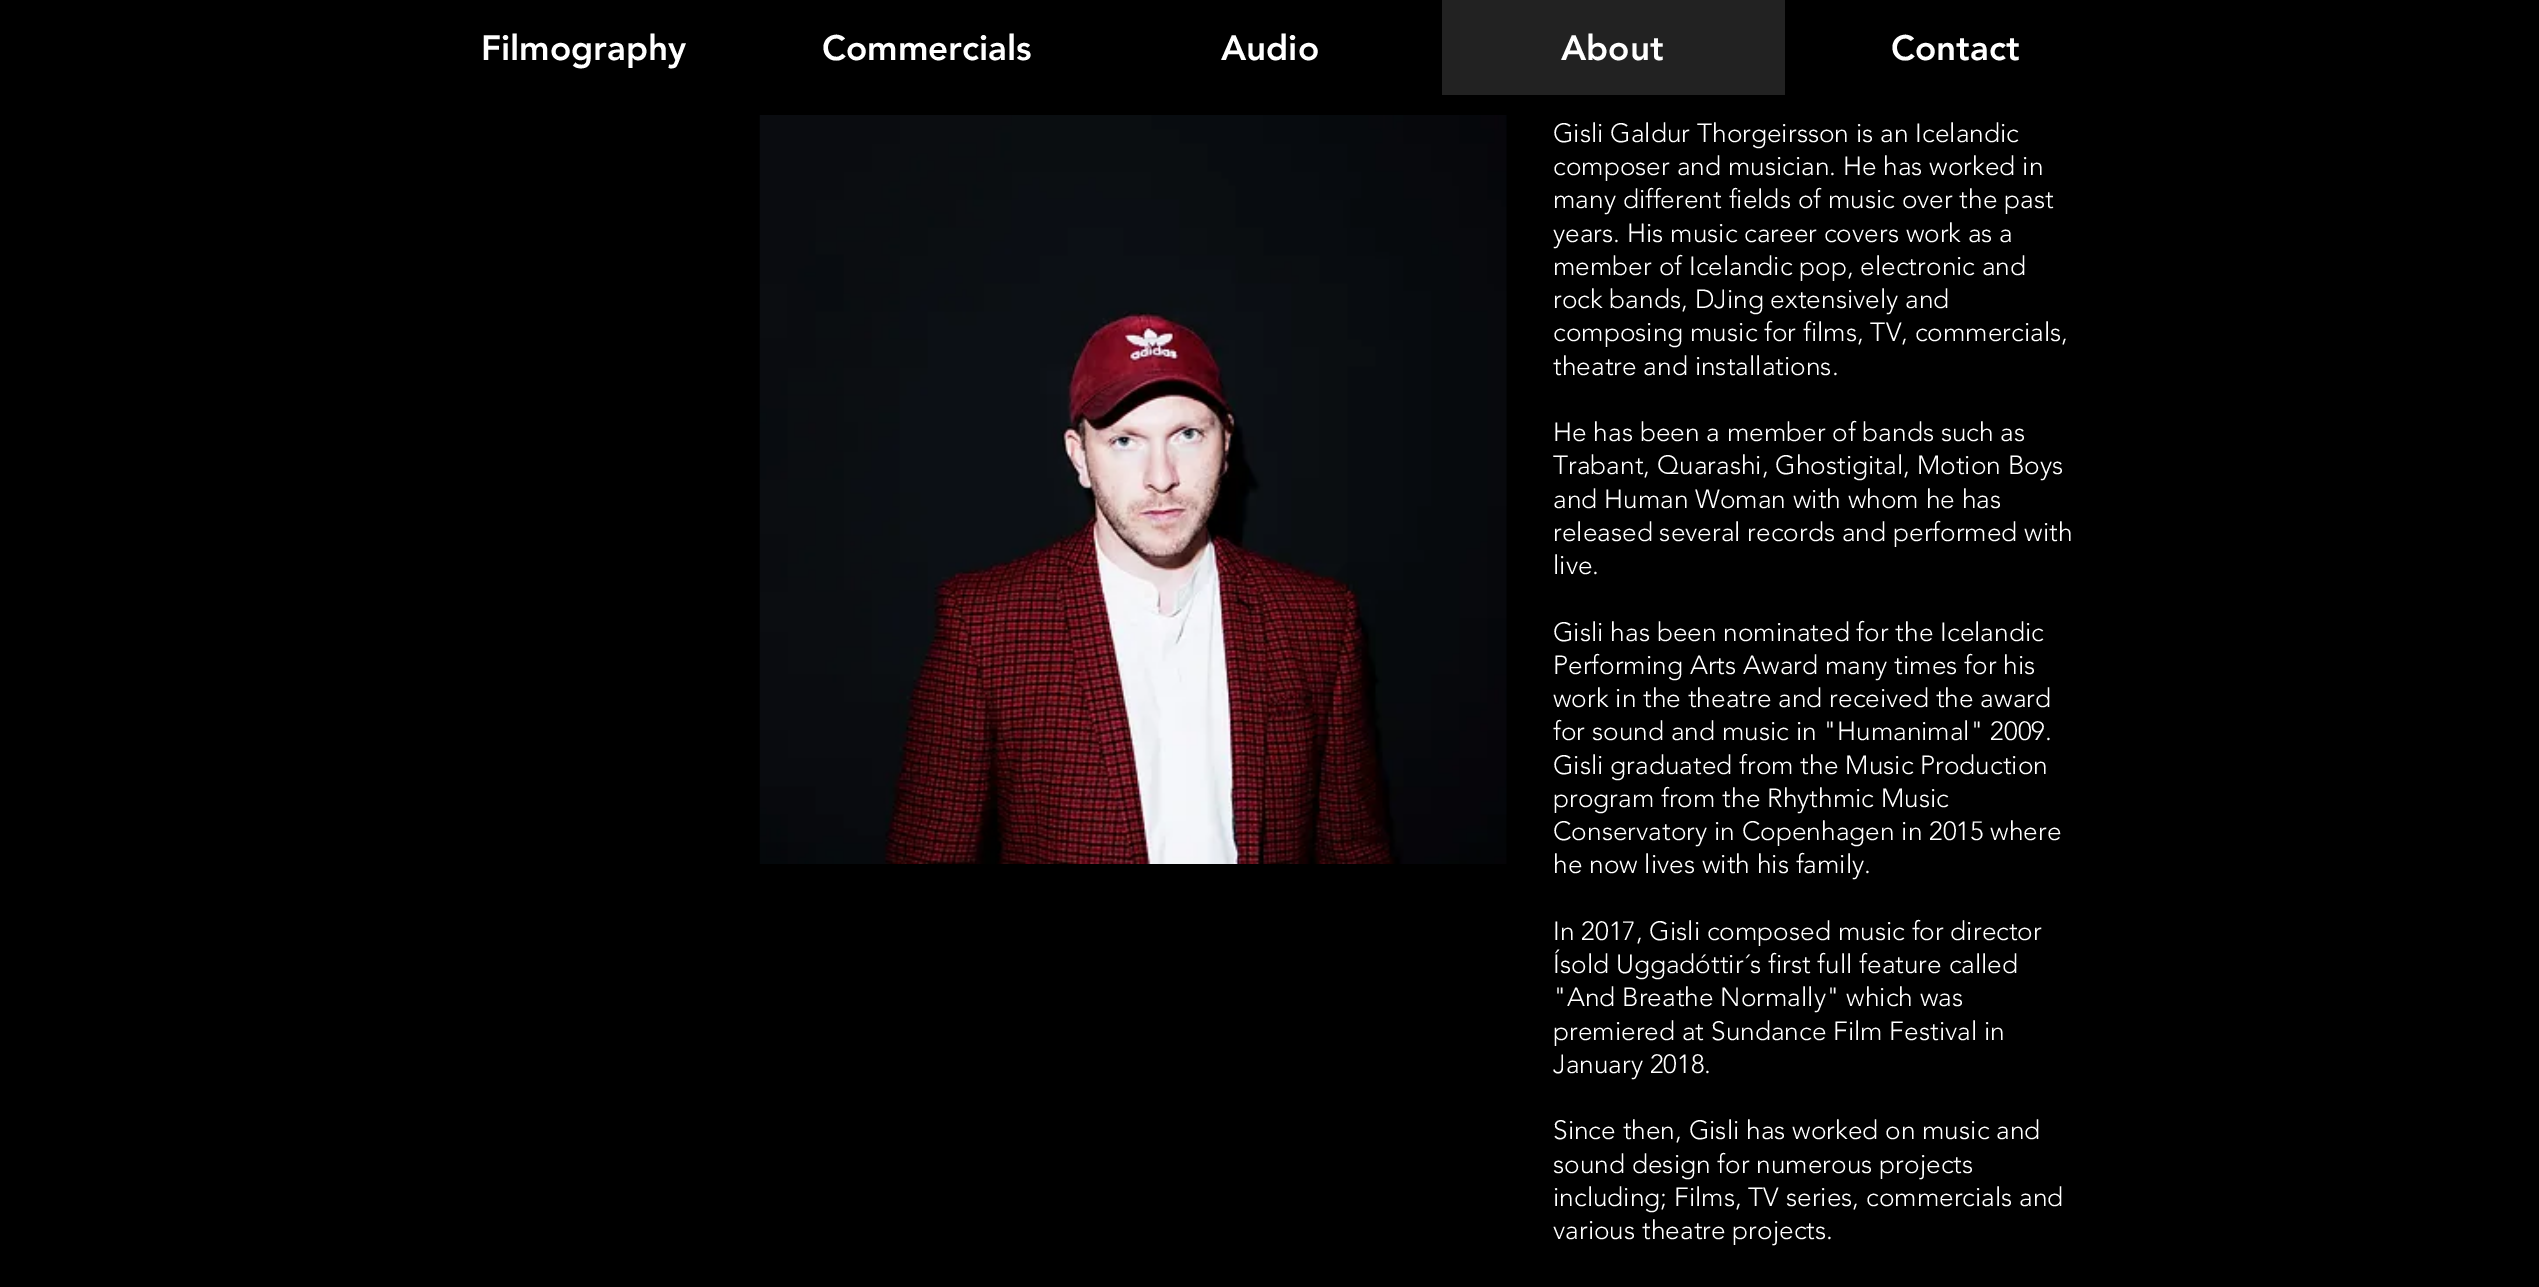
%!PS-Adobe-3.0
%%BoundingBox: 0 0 2539 1287
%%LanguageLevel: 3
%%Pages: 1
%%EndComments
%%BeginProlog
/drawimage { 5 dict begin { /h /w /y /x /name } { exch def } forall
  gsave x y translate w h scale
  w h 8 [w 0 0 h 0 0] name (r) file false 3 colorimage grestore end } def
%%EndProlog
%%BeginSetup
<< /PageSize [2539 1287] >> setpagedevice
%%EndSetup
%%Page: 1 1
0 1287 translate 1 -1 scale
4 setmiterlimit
0 setgray
0 0 2539 1287 rectfill
0.133 setgray
1442 0 343 95 rectfill
(images/1.raw) 759 115 748 749 drawimage
/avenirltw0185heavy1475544-Black [35 0 0 -35 0 0] selectfont
1 setgray
481 60 moveto (Filmography) show
822 60 moveto (Commercials) show
1221 60 moveto (Audio) show
1561 60 moveto (About) show
1891 60 moveto (Contact) show
/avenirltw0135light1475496-Light [26.25 0 0 -26.25 0 0] selectfont
1553 142 moveto (Gisli Galdur Thorgeirsson is an Icelandic) show
1553 175 moveto (composer and musician. He has worked in) show
1553 208 moveto (many different fields of music over the past) show
1553 242 moveto (years. His music career covers work as a) show
1553 275 moveto (member of Icelandic pop, electronic and) show
1553 308 moveto (rock bands, DJing extensively and) show
1553 341 moveto (composing music for films, TV, commercials,) show
1553 375 moveto (theatre and installations.) show
1553 441 moveto (He has been a member of bands such as) show
1553 474 moveto (Trabant, Quarashi, Ghostigital, Motion Boys) show
1553 508 moveto (and Human Woman with whom he has) show
1553 541 moveto (released several records and performed with) show
1553 574 moveto (live.) show
1553 641 moveto (Gisli has been nominated for the Icelandic) show
1553 674 moveto (Performing Arts Award many times for his) show
1553 707 moveto (work in the theatre and received the award) show
1553 740 moveto (for sound and music in "Humanimal" 2009.) show
1553 774 moveto (Gisli graduated from the Music Production) show
1553 807 moveto (program from the Rhythmic Music) show
1553 840 moveto (Conservatory in Copenhagen in 2015 where) show
1553 873 moveto (he now lives with his family.) show
1553 940 moveto (In 2017, Gisli composed music for director) show
1553 973 moveto (Ísold Uggadóttir´s first full feature called) show
1553 1006 moveto ("And Breathe Normally" which was) show
1553 1040 moveto (premiered at Sundance Film Festival in) show
1553 1073 moveto (January 2018.) show
1553 1139 moveto (Since then, Gisli has worked on music and) show
1553 1173 moveto (sound design for numerous projects) show
1553 1206 moveto (including; Films, TV series, commercials and) show
1553 1239 moveto (various theatre projects.) show
showpage
%%EOF
